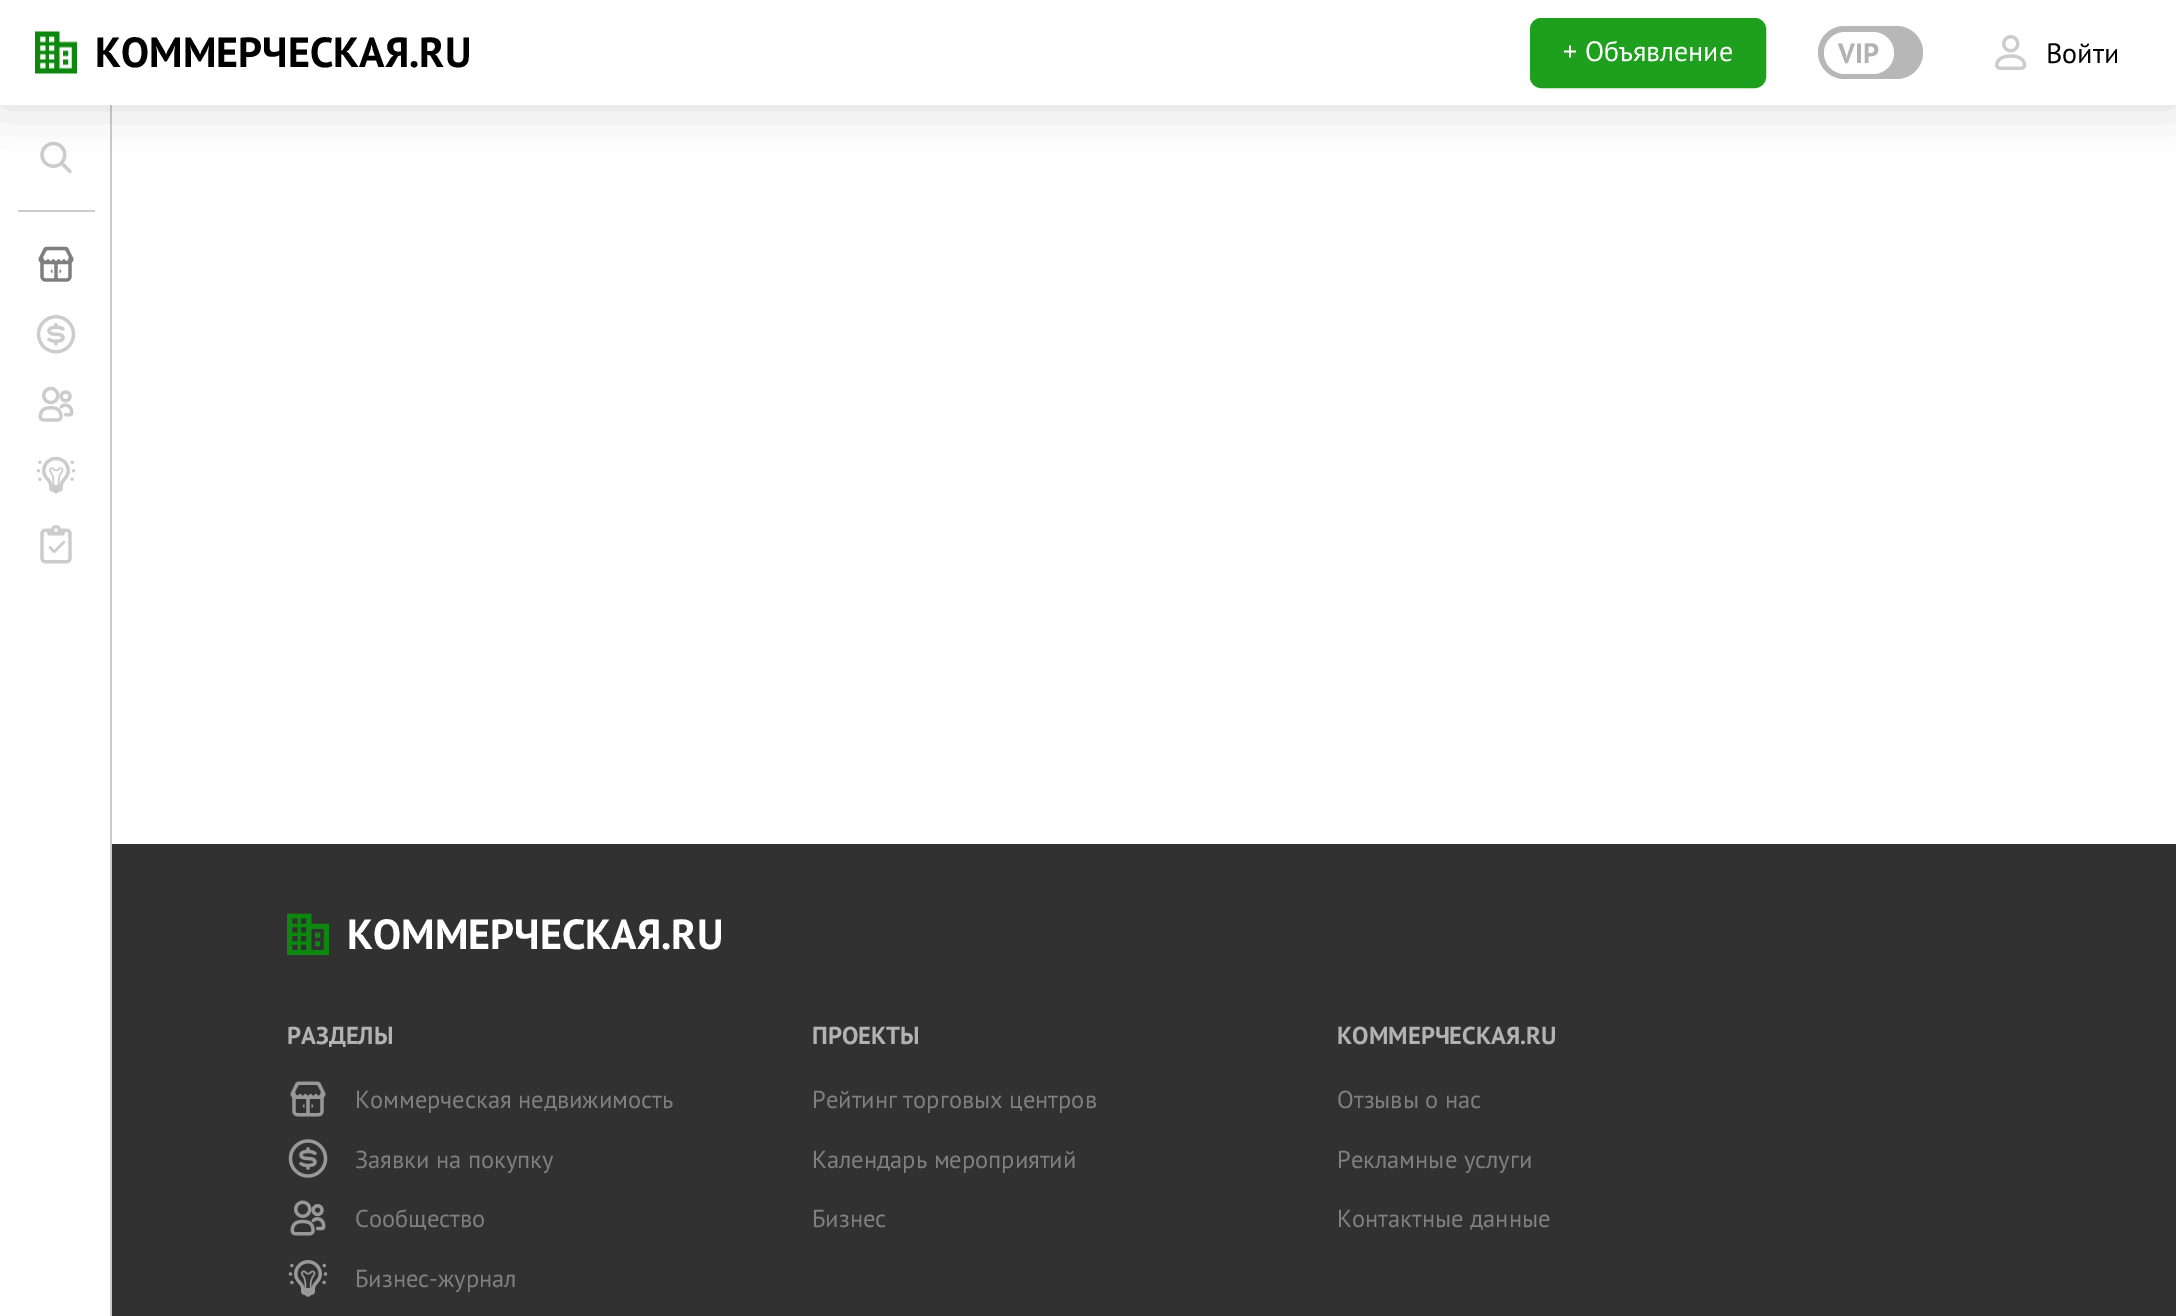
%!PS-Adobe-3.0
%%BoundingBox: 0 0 2176 1316
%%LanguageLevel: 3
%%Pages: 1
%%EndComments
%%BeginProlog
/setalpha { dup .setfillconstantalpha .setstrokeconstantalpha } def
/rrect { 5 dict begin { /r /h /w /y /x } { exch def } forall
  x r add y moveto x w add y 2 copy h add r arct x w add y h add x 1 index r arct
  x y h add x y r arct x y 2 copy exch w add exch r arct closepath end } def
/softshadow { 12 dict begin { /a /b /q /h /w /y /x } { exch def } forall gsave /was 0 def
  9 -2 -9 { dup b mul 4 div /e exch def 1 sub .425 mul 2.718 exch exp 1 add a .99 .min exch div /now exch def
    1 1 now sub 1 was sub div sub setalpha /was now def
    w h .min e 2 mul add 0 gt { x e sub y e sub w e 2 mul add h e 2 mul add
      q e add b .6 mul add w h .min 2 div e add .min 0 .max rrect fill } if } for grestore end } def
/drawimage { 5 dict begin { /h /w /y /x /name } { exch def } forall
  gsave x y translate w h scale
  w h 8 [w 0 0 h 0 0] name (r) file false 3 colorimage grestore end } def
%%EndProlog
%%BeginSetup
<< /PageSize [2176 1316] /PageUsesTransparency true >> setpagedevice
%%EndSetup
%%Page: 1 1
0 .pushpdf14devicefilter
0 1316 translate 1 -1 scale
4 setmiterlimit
1 setgray
0 0 2176 1316 rectfill
0.8 setgray
110 105 2 1211 rectfill
(images/3.raw) 40 141 32 33 drawimage
0 setgray
0 0 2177 105 0 26 0.15 softshadow
1 setgray
0 0 2176 105 rectfill
(images/1.raw) 35 31 42 43 drawimage
0.118 0.627 0.118 setrgbcolor
1531 19 234 68 10 rrect gsave fill grestore
2 setlinewidth
stroke
0.718 setgray
1818 26 105 53 26.5 rrect fill
1 setgray
1824 32 70 42 21 rrect fill
(images/2.raw) 1995 35 32 35 drawimage
0.8 setgray
18 210 77 2 rectfill
(images/4.raw) 38 246 36 36 drawimage
(images/5.raw) 36 315 40 39 drawimage
(images/6.raw) 38 386 36 36 drawimage
(images/7.raw) 36 456 40 38 drawimage
(images/8.raw) 40 525 32 39 drawimage
0.192 setgray
112 844 2064 472 rectfill
(images/9.raw) 287 913 42 42 drawimage
(images/10.raw) 290 1081 36 36 drawimage
(images/11.raw) 288 1139 40 39 drawimage
(images/12.raw) 290 1200 36 36 drawimage
(images/13.raw) 288 1260 40 37 drawimage
/PTSans-Bold [42 0 0 -42 0 0] selectfont
0 setgray
95 67 moveto (КОММЕРЧЕСКАЯ.RU) show
/PTSans-Regular [28 0 0 -28 0 0] selectfont
1 setgray
1563 61 moveto (+ Объявление) show
/PTSans-Bold [28 0 0 -28 0 0] selectfont
0.698 setgray
1838 63 moveto (VIP) show
/PTSans-Regular [28 0 0 -28 0 0] selectfont
0 setgray
2046 63 moveto (Войти) show
/PTSans-Bold [42 0 0 -42 0 0] selectfont
1 setgray
347 949 moveto (КОММЕРЧЕСКАЯ.RU) show
/PTSans-Bold [24.5 0 0 -24.5 0 0] selectfont
0.698 setgray
287 1044 moveto (РАЗДЕЛЫ) show
/PTSans-Regular [24.5 0 0 -24.5 0 0] selectfont
0.502 setgray
355 1108 moveto (Коммерческая недвижимость) show
355 1168 moveto (Заявки на покупку) show
355 1227 moveto (Сообщество) show
355 1287 moveto (Бизнес-журнал) show
/PTSans-Bold [24.5 0 0 -24.5 0 0] selectfont
0.698 setgray
812 1044 moveto (ПРОЕКТЫ) show
/PTSans-Regular [24.5 0 0 -24.5 0 0] selectfont
0.502 setgray
812 1108 moveto (Рейтинг торговых центров) show
812 1168 moveto (Календарь мероприятий) show
812 1227 moveto (Бизнес) show
/PTSans-Bold [24.5 0 0 -24.5 0 0] selectfont
0.698 setgray
1337 1044 moveto (КОММЕРЧЕСКАЯ.RU) show
/PTSans-Regular [24.5 0 0 -24.5 0 0] selectfont
0.502 setgray
1337 1108 moveto (Отзывы о нас) show
1337 1168 moveto (Рекламные услуги) show
1337 1227 moveto (Контактные данные) show
.poppdf14devicefilter showpage
%%EOF
